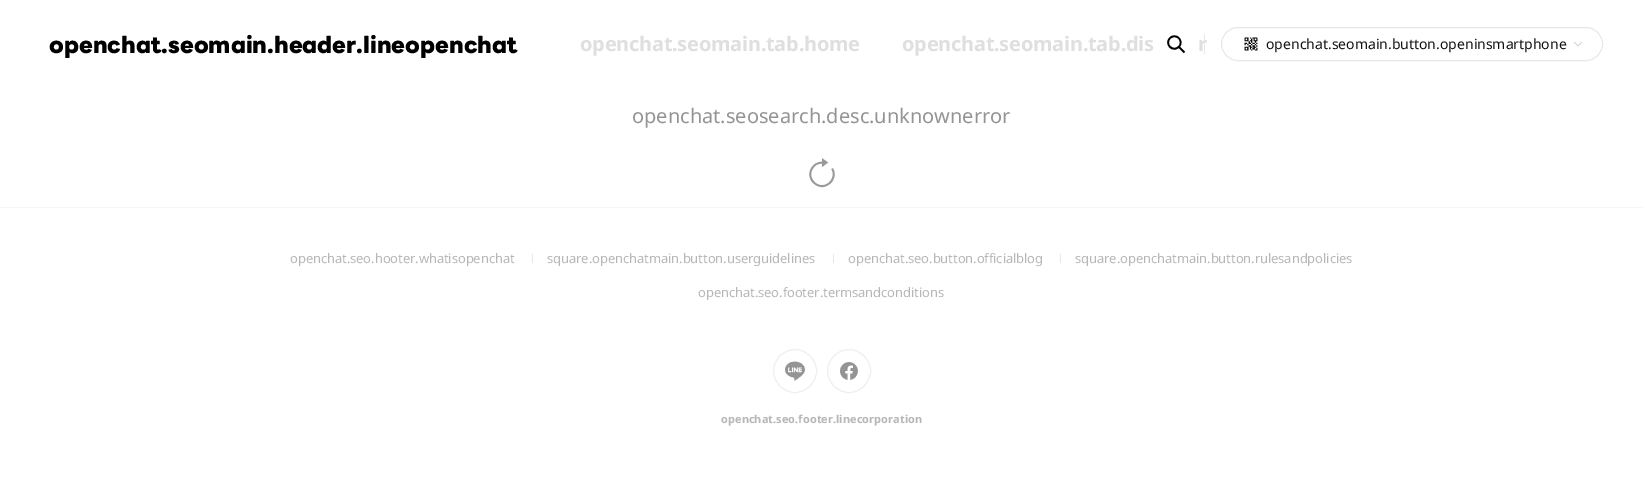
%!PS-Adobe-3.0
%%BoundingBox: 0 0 1643 489
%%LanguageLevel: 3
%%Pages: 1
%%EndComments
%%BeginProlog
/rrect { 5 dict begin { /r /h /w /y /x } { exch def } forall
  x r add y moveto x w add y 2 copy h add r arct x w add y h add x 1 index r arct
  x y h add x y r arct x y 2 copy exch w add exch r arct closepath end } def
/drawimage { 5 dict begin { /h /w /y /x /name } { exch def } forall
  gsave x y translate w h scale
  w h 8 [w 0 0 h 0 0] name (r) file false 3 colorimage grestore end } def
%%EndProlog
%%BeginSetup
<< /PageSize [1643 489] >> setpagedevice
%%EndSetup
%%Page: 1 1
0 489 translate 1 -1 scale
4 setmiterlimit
1 setgray
0 0 1643 489 rectfill
(images/1.raw) 1167 35 19 19 drawimage
0.91 setgray
1221.5 27.5 381 33 16.5 rrect stroke
(images/2.raw) 1244 37 14 14 drawimage
(images/3.raw) 1574 42 8 5 drawimage
(images/4.raw) 809 158 26 30 drawimage
0.961 setgray
0 207 1643 1 rectfill
0.91 setgray
532 254 1 9 rectfill
833 254 1 9 rectfill
1060 254 1 9 rectfill
0.937 setgray
newpath 795 371 21.5 0 360 arc closepath stroke
(images/5.raw) 785 361 20 20 drawimage
newpath 849 371 21.5 0 360 arc closepath stroke
(images/6.raw) 840 362 18 18 drawimage
/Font-ExtraBold [23 0 0 -23 0 0] selectfont
0 setgray
49 53 moveto (openchat.seomain.header.lineopenchat) show
/NotoSans-Bold [20 0 0 -20 0 0] selectfont
0.875 setgray
580 51 moveto -0.25 0 (openchat.seomain.tab.home) ashow
902 51 moveto -0.25 0 (openchat.seomain.tab.dis) ashow
1198 51 moveto -0.25 0 (r) ashow
0.91 setgray
1204 34 1 20 rectfill
/NotoSans-Regular [14 0 0 -14 0 0] selectfont
0.067 setgray
1266 49 moveto (openchat.seomain.button.openinsmartphone) show
/NotoSans-Regular [20 0 0 -20 0 0] selectfont
0.58 setgray
632 123 moveto (openchat.seosearch.desc.unknownerror) show
/NotoSans-Regular [13 0 0 -13 0 0] selectfont
0.718 setgray
290 263 moveto -0.1 0 (openchat.seo.hooter.whatisopenchat) ashow
547 263 moveto -0.1 0 (square.openchatmain.button.userguidelines) ashow
848 263 moveto -0.1 0 (openchat.seo.button.officialblog) ashow
1075 263 moveto -0.1 0 (square.openchatmain.button.rulesandpolicies) ashow
698 297 moveto -0.1 0 (openchat.seo.footer.termsandconditions) ashow
/NotoSans-Bold [11 0 0 -11 0 0] selectfont
721 423 moveto 0.05 0 (openchat.seo.footer.linecorporation) ashow
showpage
%%EOF
